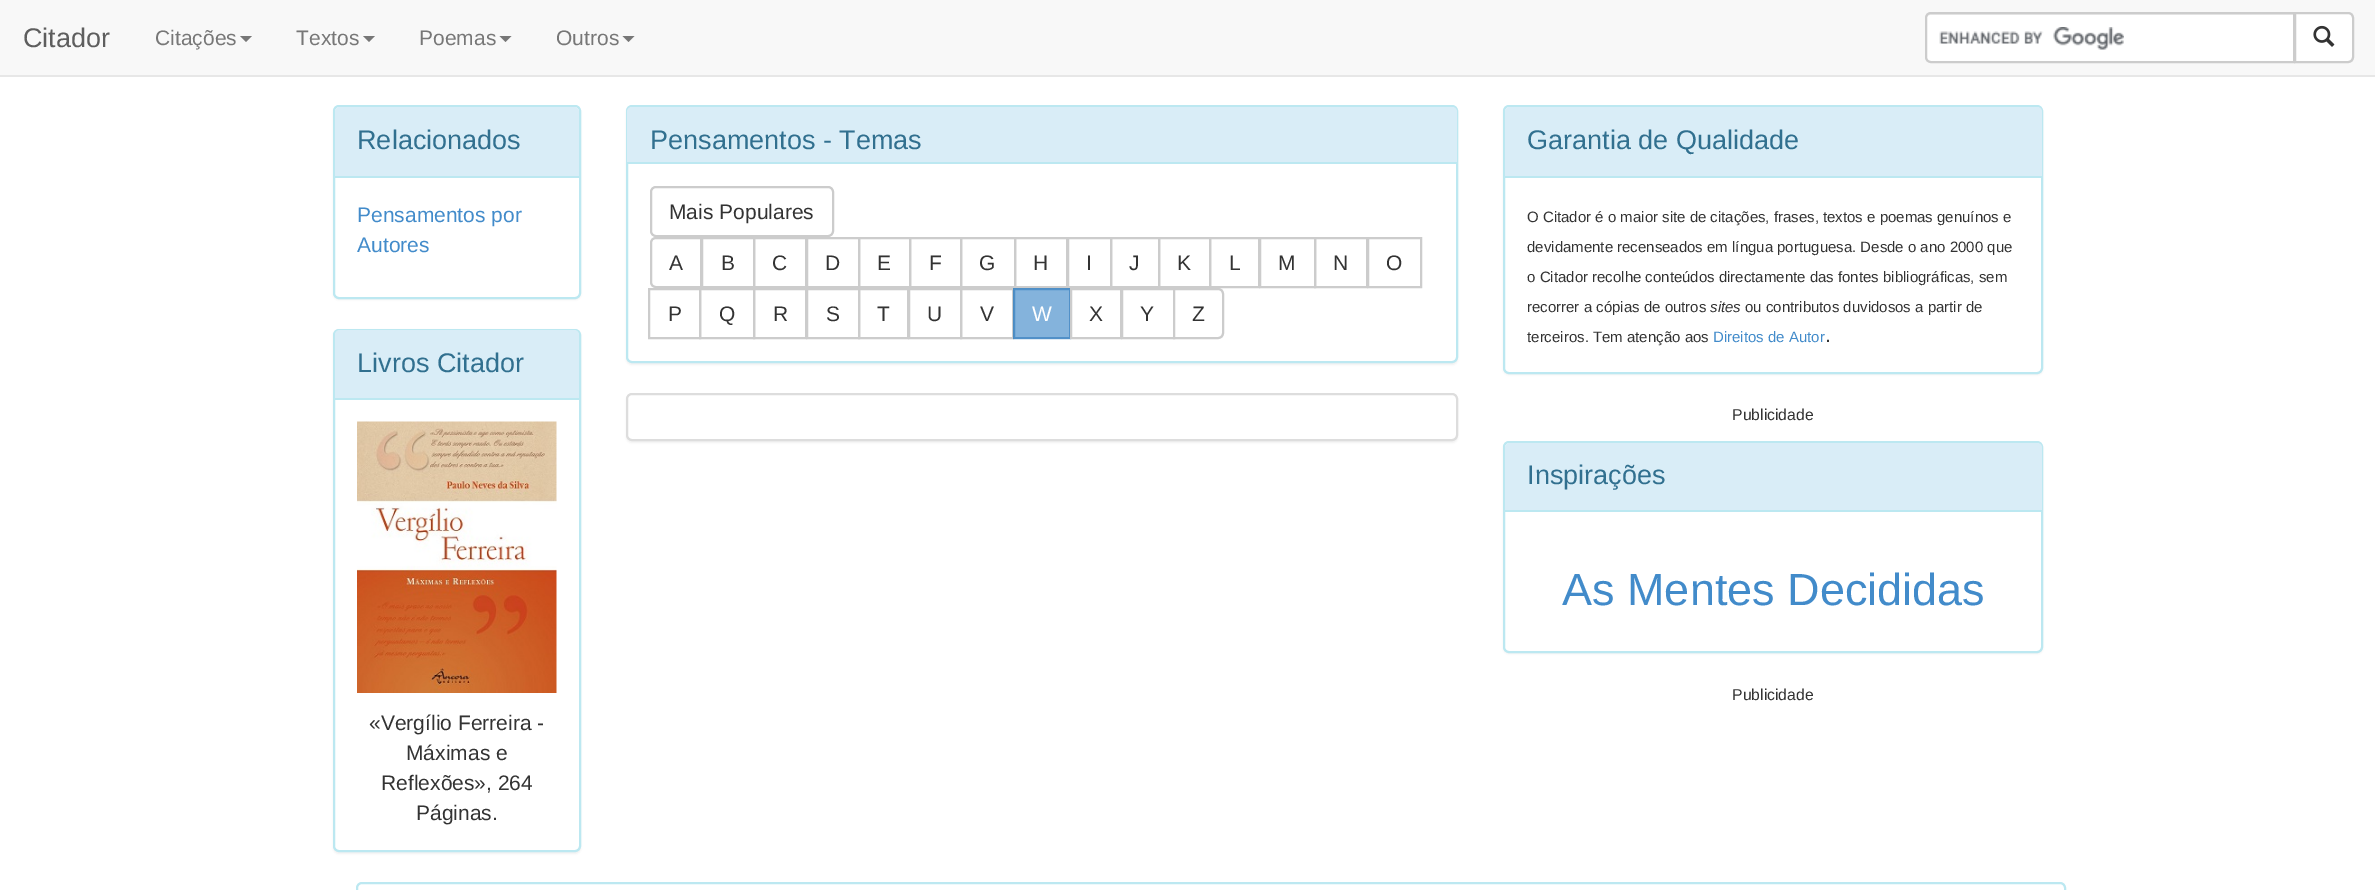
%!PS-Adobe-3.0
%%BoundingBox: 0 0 2375 890
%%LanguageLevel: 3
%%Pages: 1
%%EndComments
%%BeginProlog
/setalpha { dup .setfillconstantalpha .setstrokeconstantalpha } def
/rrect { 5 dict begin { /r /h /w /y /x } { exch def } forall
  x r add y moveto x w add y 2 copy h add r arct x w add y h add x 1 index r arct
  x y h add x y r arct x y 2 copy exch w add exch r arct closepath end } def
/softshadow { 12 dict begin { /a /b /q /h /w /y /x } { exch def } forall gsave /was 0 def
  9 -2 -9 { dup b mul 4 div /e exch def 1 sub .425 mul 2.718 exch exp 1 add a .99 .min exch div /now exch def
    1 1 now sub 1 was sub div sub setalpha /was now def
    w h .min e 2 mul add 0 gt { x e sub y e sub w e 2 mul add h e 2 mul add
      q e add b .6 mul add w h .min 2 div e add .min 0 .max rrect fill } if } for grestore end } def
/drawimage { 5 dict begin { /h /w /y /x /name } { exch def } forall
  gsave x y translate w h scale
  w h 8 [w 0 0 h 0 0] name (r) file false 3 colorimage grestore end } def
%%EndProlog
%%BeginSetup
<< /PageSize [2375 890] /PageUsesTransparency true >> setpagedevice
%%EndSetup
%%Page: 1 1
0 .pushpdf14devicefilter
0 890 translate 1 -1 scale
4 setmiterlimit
1 setgray
0 0 2375 890 rectfill
0.973 setgray
0 0 2375 75 rectfill
0.906 setgray
0 75 2375 2 rectfill
0.467 setgray
newpath 240 36 moveto 252 36 lineto 246 42 lineto closepath fill
newpath 363 36 moveto 375 36 lineto 369 42 lineto closepath fill
newpath 499.5 36 moveto 511.5 36 lineto 505.5 42 lineto closepath fill
newpath 622.5 36 moveto 634.5 36 lineto 628.5 42 lineto closepath fill
1 setgray
newpath 2295 13 moveto 2348 13 lineto 2351 13 2353 15 2353 18 curveto 2353 57 lineto 2353 60 2351 62 2348 62 curveto 2295 62 lineto closepath gsave fill grestore
0.8 setgray
2 setlinewidth
stroke
1 setgray
newpath 1931 12 moveto 2295 12 lineto 2295 63 lineto 1931 63 lineto 1927.5 63 1925 60.5 1925 57 curveto 1925 18 lineto 1925 14.5 1927.5 12 1931 12 curveto closepath fill
(images/1.raw) 1939 27 185 23 drawimage
0.925 setgray
newpath 1930 15 moveto 2294 15 lineto 2294 14 lineto 1931 14 lineto 1928 14 1926 16 1926 19 curveto 1926 20 lineto 1926 17 1928 15 1930 15 curveto closepath fill
0.8 setgray
newpath 1931 13 moveto 2294 13 lineto 2294 62 lineto 1931 62 lineto 1928 62 1926 60 1926 57 curveto 1926 18 lineto 1926 15 1928 13 1931 13 curveto closepath stroke
(images/2.raw) 2313 25 22 22 drawimage
0 setgray
333 107 248 193 6 1 0.05 softshadow
1 setgray
334 106 246 192 5 rrect gsave fill grestore
0.737 0.91 0.945 setrgbcolor
stroke
0.851 0.929 0.969 setrgbcolor
newpath 340 107 moveto 574 107 lineto 577 107 579 109 579 112 curveto 579 177 lineto 335 177 lineto 335 112 lineto 335 109 337 107 340 107 curveto closepath fill
0.737 0.91 0.945 setrgbcolor
335 176 244 2 rectfill
0 setgray
333 330 248 524 6 1 0.05 softshadow
1 setgray
334 330 246 521 5 rrect gsave fill grestore
0.737 0.91 0.945 setrgbcolor
stroke
0.851 0.929 0.969 setrgbcolor
newpath 340 330 moveto 574 330 lineto 577 330 579 332 579 335 curveto 579 399 lineto 335 399 lineto 335 335 lineto 335 332 337 330 340 330 curveto closepath fill
0.737 0.91 0.945 setrgbcolor
335 398 244 2 rectfill
(images/3.raw) 357 421 200 272 drawimage
0 setgray
626 107 832 258 6 1 0.05 softshadow
1 setgray
627 106 830 256 5 rrect gsave fill grestore
0.737 0.91 0.945 setrgbcolor
stroke
0.851 0.929 0.969 setrgbcolor
newpath 632 107 moveto 1452 107 lineto 1455 107 1457 109 1457 112 curveto 1457 164 lineto 627 164 lineto 627 112 lineto 627 109 629 107 632 107 curveto closepath fill
0.737 0.91 0.945 setrgbcolor
627 162 830 2 rectfill
0.8 setgray
651 187 182 49 5 rrect stroke
newpath 656 238 moveto 701 238 lineto 701 287 lineto 656 287 lineto 653 287 651 285 651 282 curveto 651 243 lineto 651 240 653 238 656 238 curveto closepath stroke
702 238 52 49 rectstroke
754 238 52 49 rectstroke
807 238 52 49 rectstroke
859 238 51 49 rectstroke
910 238 51 49 rectstroke
961 238 54 49 rectstroke
1015 238 52 49 rectstroke
1068 238 43 49 rectstroke
1111 238 48 49 rectstroke
1159 238 51 49 rectstroke
1210 238 49 49 rectstroke
1260 238 55 49 rectstroke
1315 238 52 49 rectstroke
1368 238 53 49 rectstroke
649 289 51 49 rectstroke
700 289 54 49 rectstroke
754 289 52 49 rectstroke
807 289 52 49 rectstroke
859 289 49 49 rectstroke
909 289 52 49 rectstroke
961 289 52 49 rectstroke
0.65 setalpha
0.259 0.545 0.792 setrgbcolor
1013 288 57 51 rectfill
0.208 0.494 0.741 setrgbcolor
1014 289 56 49 rectstroke
1 setalpha
0.8 setgray
1071 289 50 49 rectstroke
1122 289 52 49 rectstroke
1 setgray
newpath 1174 289 moveto 1218 289 lineto 1221 289 1223 291 1223 294 curveto 1223 333 lineto 1223 336 1221 338 1218 338 curveto 1174 338 lineto closepath gsave fill grestore
0.8 setgray
stroke
0 setgray
626 395 832 48 6 1 0.05 softshadow
1 setgray
627 394 830 46 5 rrect gsave fill grestore
0.867 setgray
stroke
0 setgray
1503 107 540 268 6 1 0.05 softshadow
1 setgray
1504 106 538 267 5 rrect gsave fill grestore
0.737 0.91 0.945 setrgbcolor
stroke
0.851 0.929 0.969 setrgbcolor
newpath 1510 107 moveto 2037 107 lineto 2040 107 2042 109 2042 112 curveto 2042 177 lineto 1505 177 lineto 1505 112 lineto 1505 109 1507 107 1510 107 curveto closepath fill
0.737 0.91 0.945 setrgbcolor
1505 176 537 2 rectfill
0 setgray
1503 443 540 211 6 1 0.05 softshadow
1 setgray
1504 442 538 210 5 rrect gsave fill grestore
0.737 0.91 0.945 setrgbcolor
stroke
0.851 0.929 0.969 setrgbcolor
newpath 1510 443 moveto 2037 443 lineto 2040 443 2042 445 2042 448 curveto 2042 512 lineto 1505 512 lineto 1505 448 lineto 1505 445 1507 443 1510 443 curveto closepath fill
0.737 0.91 0.945 setrgbcolor
1505 510 537 2 rectfill
357 883 1708 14 5 rrect stroke
/LiberationSans-Regular [27 0 0 -27 0 0] selectfont
0.369 setgray
23 47 moveto (Citador) show
/LiberationSans-Regular [21 0 0 -21 0 0] selectfont
0.467 setgray
155 45 moveto (Citações) show
296 45 moveto (Textos) show
419 45 moveto (Poemas) show
556 45 moveto (Outros) show
/LiberationSans-Regular [27 0 0 -27 0 0] selectfont
0.192 0.439 0.561 setrgbcolor
357 149 moveto (Relacionados) show
/LiberationSans-Regular [21 0 0 -21 0 0] selectfont
0.259 0.545 0.792 setrgbcolor
357 222 moveto (Pensamentos por) show
357 252 moveto (Autores) show
/LiberationSans-Regular [27 0 0 -27 0 0] selectfont
0.192 0.439 0.561 setrgbcolor
357 372 moveto (Livros Citador) show
/LiberationSans-Regular [21 0 0 -21 0 0] selectfont
0.2 setgray
369 730 moveto («Vergílio Ferreira -) show
406 760 moveto (Máximas e) show
381 790 moveto (Reflexões», 264) show
416 820 moveto (Páginas.) show
/LiberationSans-Regular [27 0 0 -27 0 0] selectfont
0.192 0.439 0.561 setrgbcolor
650 149 moveto (Pensamentos - Temas) show
/LiberationSans-Regular [21 0 0 -21 0 0] selectfont
0.2 setgray
669 219 moveto (Mais Populares) show
669 270 moveto (A) show
721 270 moveto (B) show
772 270 moveto (C) show
825 270 moveto (D) show
877 270 moveto (E) show
929 270 moveto (F) show
979 270 moveto (G) show
1033 270 moveto (H) show
1086 270 moveto (I) show
1129 270 moveto (J) show
1177 270 moveto (K) show
1229 270 moveto (L) show
1278 270 moveto (M) show
1333 270 moveto (N) show
1386 270 moveto (O) show
668 321 moveto (P) show
719 321 moveto (Q) show
773 321 moveto (R) show
826 321 moveto (S) show
877 321 moveto (T) show
927 321 moveto (U) show
980 321 moveto (V) show
1 setgray
1032 321 moveto (W) show
0.2 setgray
1089 321 moveto (X) show
1140 321 moveto (Y) show
1192 321 moveto (Z) show
/LiberationSans-Regular [27 0 0 -27 0 0] selectfont
0.192 0.439 0.561 setrgbcolor
1527 149 moveto (Garantia de Qualidade) show
/LiberationSans-Regular [15 0 0 -15 0 0] selectfont
0.2 setgray
1527 222 moveto (O Citador é o maior site de citações, frases, textos e poemas genuínos e) show
1527 252 moveto (devidamente recenseados em língua portuguesa. Desde o ano 2000 que) show
1527 282 moveto (o Citador recolhe conteúdos directamente das fontes bibliográficas, sem) show
1527 312 moveto (recorrer a cópias de outros) show
/LiberationSans-Italic [15 0 0 -15 0 0] selectfont
1710 312 moveto (sites) show
/LiberationSans-Regular [15 0 0 -15 0 0] selectfont
1745 312 moveto (ou contributos duvidosos a partir de) show
1527 342 moveto (terceiros. Tem atenção aos) show
0.259 0.545 0.792 setrgbcolor
1713 342 moveto (Direitos de Autor) show
/LiberationSans-Regular [21 0 0 -21 0 0] selectfont
0.2 setgray
1825 342 moveto (.) show
/LiberationSans-Regular [15.75 0 0 -15.75 0 0] selectfont
1732 420 moveto (Publicidade) show
/LiberationSans-Regular [27 0 0 -27 0 0] selectfont
0.192 0.439 0.561 setrgbcolor
1527 484 moveto (Inspirações) show
/LiberationSans-Regular [45 0 0 -45 0 0] selectfont
0.259 0.545 0.792 setrgbcolor
1562 605 moveto (As Mentes Decididas) show
/LiberationSans-Regular [15.75 0 0 -15.75 0 0] selectfont
0.2 setgray
1732 700 moveto (Publicidade) show
.poppdf14devicefilter showpage
%%EOF
